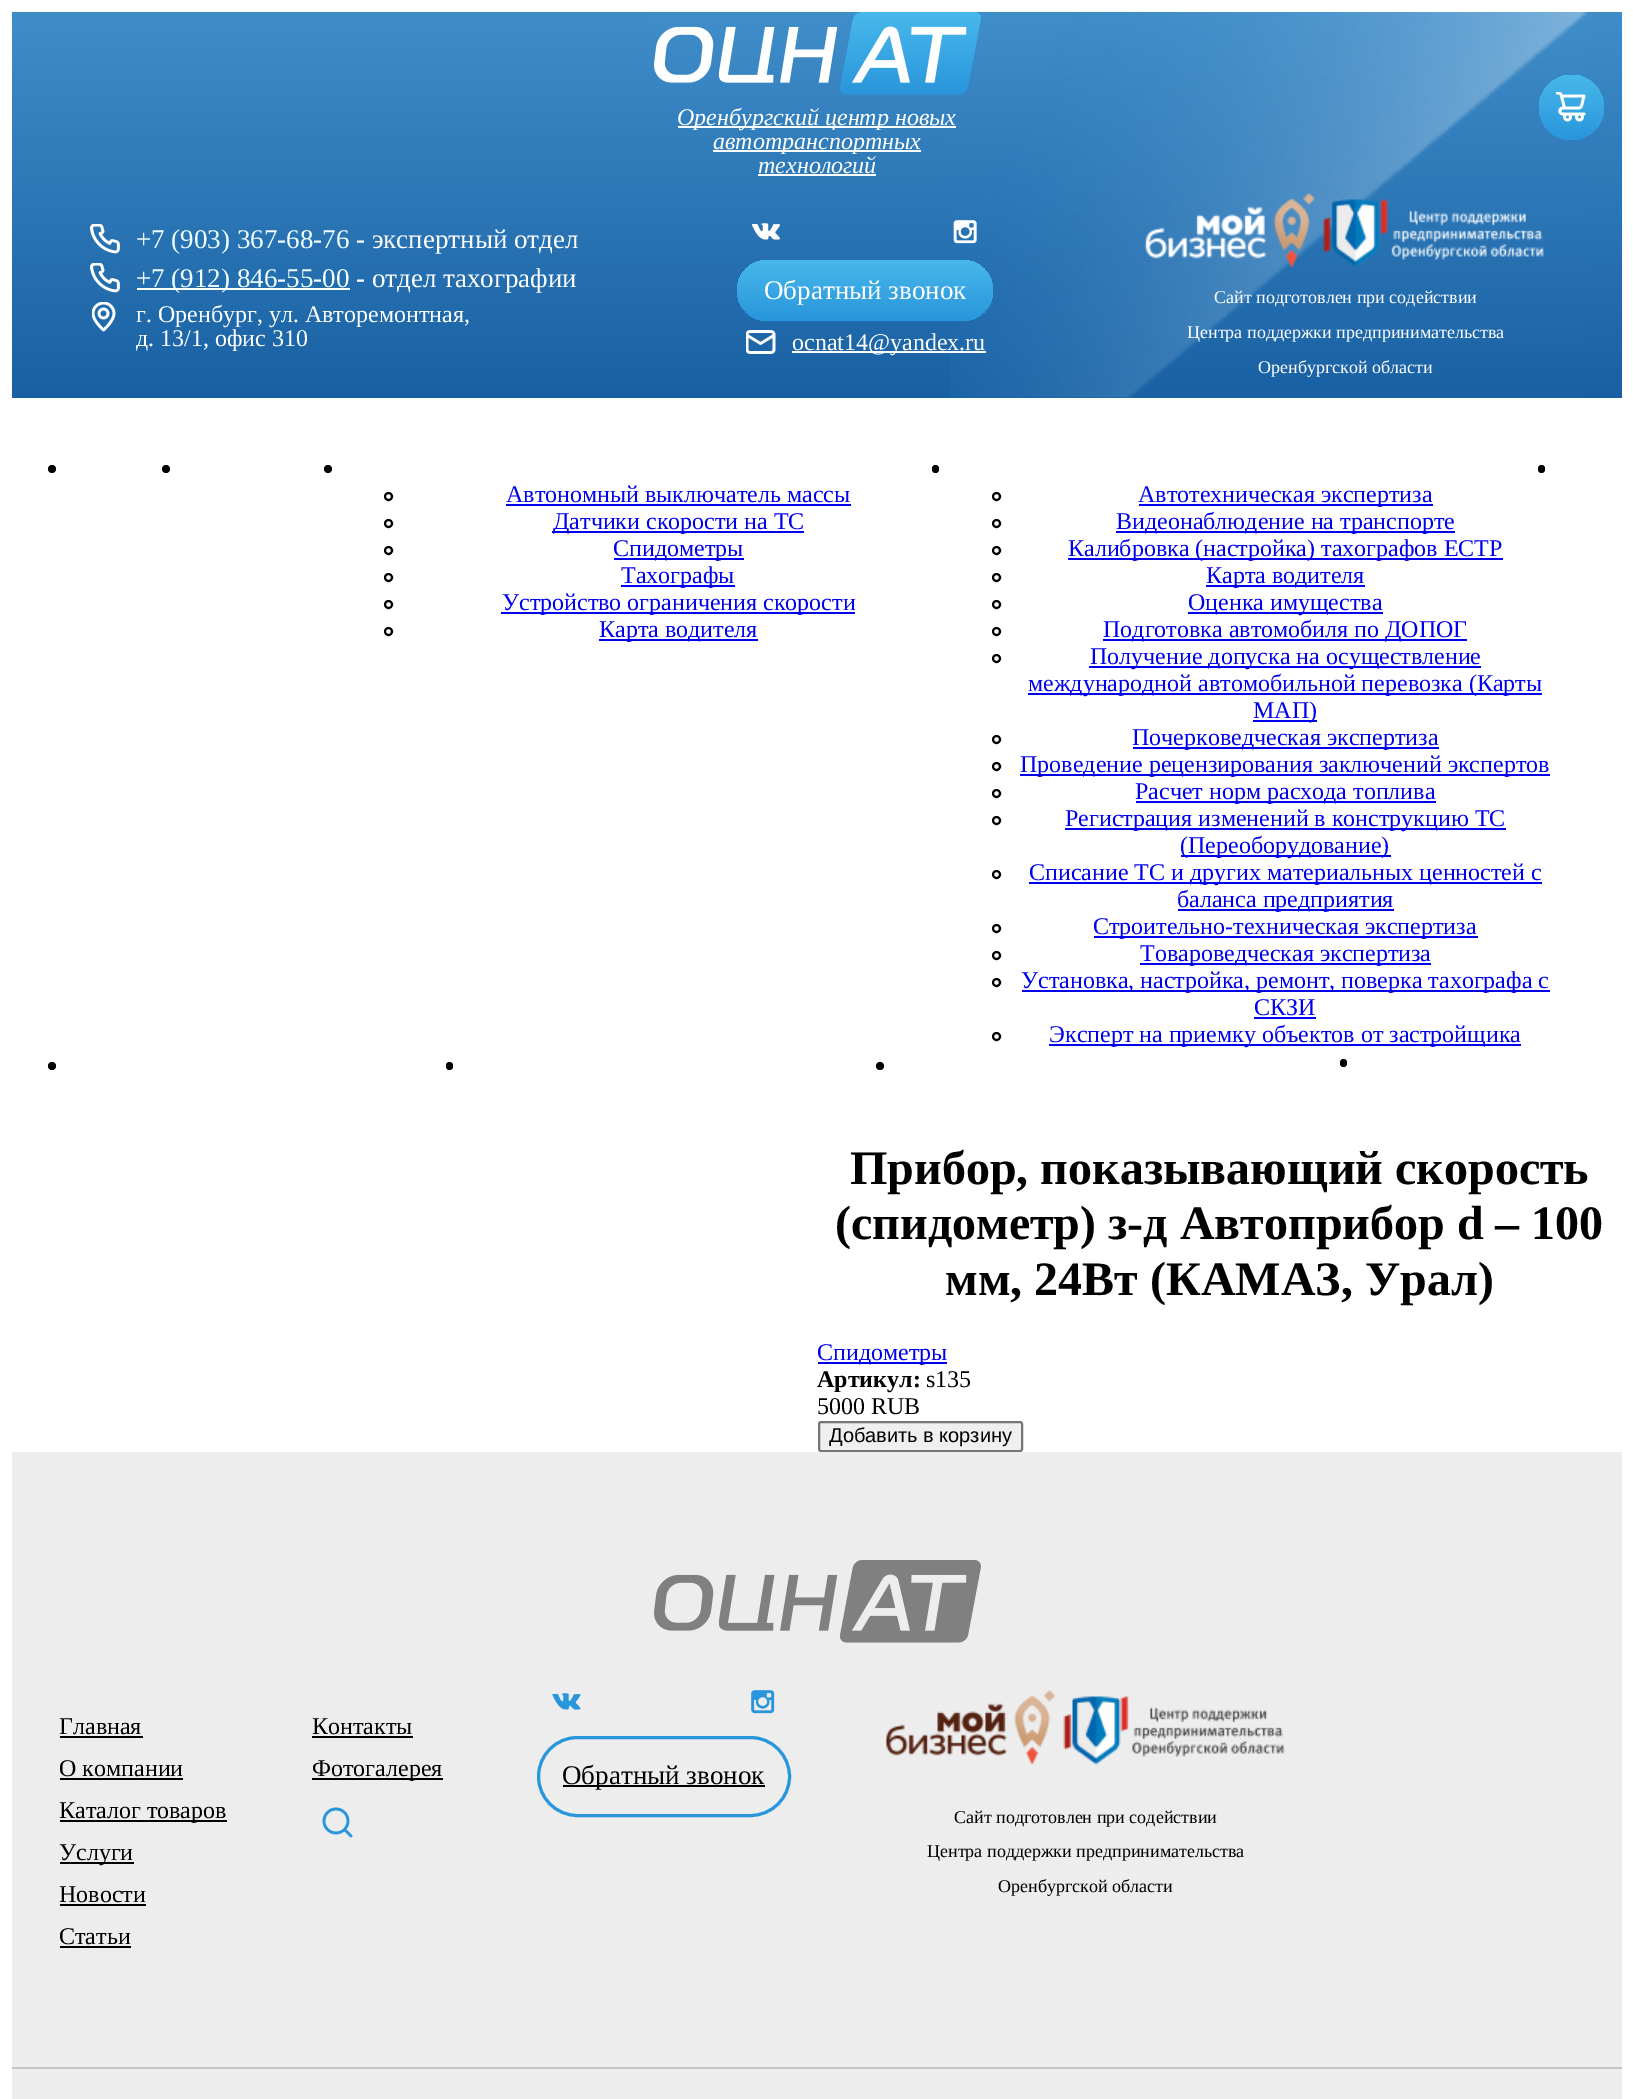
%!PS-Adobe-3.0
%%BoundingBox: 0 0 1633 2099
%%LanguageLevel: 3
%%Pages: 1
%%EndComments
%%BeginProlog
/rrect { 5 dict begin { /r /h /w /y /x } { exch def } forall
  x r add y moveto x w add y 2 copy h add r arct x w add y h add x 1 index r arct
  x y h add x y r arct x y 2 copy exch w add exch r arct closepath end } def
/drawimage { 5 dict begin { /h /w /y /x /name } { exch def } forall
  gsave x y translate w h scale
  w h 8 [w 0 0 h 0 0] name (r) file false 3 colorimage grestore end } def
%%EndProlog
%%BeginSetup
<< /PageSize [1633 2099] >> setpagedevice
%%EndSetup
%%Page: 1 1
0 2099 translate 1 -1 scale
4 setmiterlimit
1 setgray
0 0 1633 2099 rectfill
gsave newpath 12 12 moveto 1622 12 lineto 1622 398 lineto 12 398 lineto closepath clip newpath
<< /ShadingType 2 /ColorSpace /DeviceRGB /Coords [817 12 817 398] /Extend [true true] /Function << /FunctionType 2 /Domain [0 1] /C0 [0.247 0.553 0.788] /C1 [0.094 0.376 0.639] /N 1 >> >> shfill grestore
(images/1.raw) 950 12 637 386 drawimage
(images/2.raw) 654 12 327 83 drawimage
678 126 278 2 rectfill
713 150 208 2 rectfill
758 174 118 2 rectfill
(images/3.raw) 90 224 30 30 drawimage
(images/4.raw) 90 263 30 30 drawimage
137 288 213 2 rectfill
(images/5.raw) 92 302 24 30 drawimage
(images/6.raw) 752 223 28 17 drawimage
(images/7.raw) 953 220 24 24 drawimage
gsave 737 260 256 61 30.5 rrect clip newpath
<< /ShadingType 2 /ColorSpace /DeviceRGB /Coords [865 260 865 321] /Extend [true true] /Function << /FunctionType 2 /Domain [0 1] /C0 [0.278 0.722 0.922] /C1 [0.161 0.584 0.859] /N 1 >> >> shfill grestore
(images/8.raw) 746 330 30 24 drawimage
792 351 194 2 rectfill
(images/9.raw) 1144 192 400 77 drawimage
gsave newpath 1571.5 107.5 32.5 0 360 arc closepath clip newpath
<< /ShadingType 2 /ColorSpace /DeviceRGB /Coords [1571 75 1571 140] /Extend [true true] /Function << /FunctionType 2 /Domain [0 1] /C0 [0.278 0.722 0.922] /C1 [0.161 0.584 0.859] /N 1 >> >> shfill grestore
(images/10.raw) 1556 92 30 30 drawimage
0 setgray
newpath 52 469 4 0 360 arc closepath fill
newpath 166 469 4 0 360 arc closepath fill
1538 465 7 8 3.5 rrect fill
newpath 328 469 4 0 360 arc closepath fill
2 setlinewidth
newpath 388.5 496.5 3.5 0 360 arc closepath stroke
0 0 0.933 setrgbcolor
506 504 345 2 rectfill
0 setgray
newpath 388.5 523.5 3.5 0 360 arc closepath stroke
0 0 0.933 setrgbcolor
552 531 252 2 rectfill
0 setgray
newpath 388.5 550.5 3.5 0 360 arc closepath stroke
0 0 0.933 setrgbcolor
614 558 130 2 rectfill
0 setgray
newpath 388.5 577.5 3.5 0 360 arc closepath stroke
0 0 0.933 setrgbcolor
621 585 114 2 rectfill
0 setgray
newpath 388.5 604.5 3.5 0 360 arc closepath stroke
0 0 0.933 setrgbcolor
501 612 354 2 rectfill
0 setgray
newpath 388.5 631.5 3.5 0 360 arc closepath stroke
0 0 0.933 setrgbcolor
599 639 159 2 rectfill
0 setgray
932 465 7 8 3.5 rrect fill
newpath 996.5 496.5 3.5 0 360 arc closepath stroke
0 0 0.933 setrgbcolor
1139 504 294 2 rectfill
0 setgray
newpath 996.5 523.5 3.5 0 360 arc closepath stroke
0 0 0.933 setrgbcolor
1116 531 339 2 rectfill
0 setgray
newpath 996.5 550.5 3.5 0 360 arc closepath stroke
0 0 0.933 setrgbcolor
1068 558 435 2 rectfill
0 setgray
newpath 996.5 577.5 3.5 0 360 arc closepath stroke
0 0 0.933 setrgbcolor
1206 585 159 2 rectfill
0 setgray
newpath 996.5 604.5 3.5 0 360 arc closepath stroke
0 0 0.933 setrgbcolor
1188 612 195 2 rectfill
0 setgray
newpath 996.5 631.5 3.5 0 360 arc closepath stroke
0 0 0.933 setrgbcolor
1103 639 364 2 rectfill
0 setgray
newpath 996.5 658.5 3.5 0 360 arc closepath stroke
0 0 0.933 setrgbcolor
1089 666 392 2 rectfill
1028 693 514 2 rectfill
1253 720 64 2 rectfill
0 setgray
newpath 996.5 739.5 3.5 0 360 arc closepath stroke
0 0 0.933 setrgbcolor
1133 747 306 2 rectfill
0 setgray
newpath 996.5 766.5 3.5 0 360 arc closepath stroke
0 0 0.933 setrgbcolor
1020 774 530 2 rectfill
0 setgray
newpath 996.5 793.5 3.5 0 360 arc closepath stroke
0 0 0.933 setrgbcolor
1136 801 300 2 rectfill
0 setgray
newpath 996.5 820.5 3.5 0 360 arc closepath stroke
0 0 0.933 setrgbcolor
1065 828 441 2 rectfill
1181 855 210 2 rectfill
0 setgray
newpath 996.5 874.5 3.5 0 360 arc closepath stroke
0 0 0.933 setrgbcolor
1029 882 513 2 rectfill
1178 909 216 2 rectfill
0 setgray
newpath 996.5 928.5 3.5 0 360 arc closepath stroke
0 0 0.933 setrgbcolor
1094 936 384 2 rectfill
0 setgray
newpath 996.5 955.5 3.5 0 360 arc closepath stroke
0 0 0.933 setrgbcolor
1140 963 291 2 rectfill
0 setgray
newpath 996.5 982.5 3.5 0 360 arc closepath stroke
0 0 0.933 setrgbcolor
1022 990 528 2 rectfill
1254 1017 62 2 rectfill
0 setgray
newpath 996.5 1036.5 3.5 0 360 arc closepath stroke
0 0 0.933 setrgbcolor
1049 1044 472 2 rectfill
0 setgray
newpath 52 1066 4 0 360 arc closepath fill
446 1062 7 8 3.5 rrect fill
newpath 880 1066 4 0 360 arc closepath fill
1340 1059 7 8 3.5 rrect fill
0 0 0.933 setrgbcolor
818 1362 129 2 rectfill
0.937 setgray
819 1422 203 29 2 rrect gsave fill grestore
0.463 setgray
stroke
0.929 setgray
12 1452 1610 647 rectfill
(images/11.raw) 654 1560 327 83 drawimage
0 setgray
60 1736 83 2 rectfill
312 1736 101 2 rectfill
60 1778 123 2 rectfill
312 1778 131 2 rectfill
60 1820 167 2 rectfill
(images/12.raw) 322 1807 31 31 drawimage
60 1862 74 2 rectfill
60 1904 86 2 rectfill
60 1946 71 2 rectfill
(images/13.raw) 552 1693 29 17 drawimage
(images/14.raw) 751 1690 24 24 drawimage
0.161 0.584 0.859 setrgbcolor
3 setlinewidth
538.5 1737.5 251 78 39 rrect stroke
0 setgray
563 1785 202 2 rectfill
(images/15.raw) 885 1690 400 75 drawimage
0.769 setgray
12 2067 1610 2 rectfill
/LiberationSerif-Italic [24 0 0 -24 0 0] selectfont
1 setgray
677 125 moveto (Оренбургский центр новых) show
713 149 moveto (автотранспортных) show
758 173 moveto (технологий) show
/LiberationSerif-Regular [27 0 0 -27 0 0] selectfont
0.941 1 1 setrgbcolor
136 248 moveto (+7 \(903\) 367-68-76) show
1 setgray
356 248 moveto (- экспертный отдел) show
0.941 1 1 setrgbcolor
136 287 moveto (+7 \(912\) 846-55-00) show
1 setgray
356 287 moveto (- отдел тахографии) show
/LiberationSerif-Regular [24 0 0 -24 0 0] selectfont
136 322 moveto (г. Оренбург, ул. Авторемонтная,) show
136 346 moveto (д. 13/1, офис 310) show
/LiberationSerif-Regular [27 0 0 -27 0 0] selectfont
764 299 moveto (Обратный звонок) show
/LiberationSerif-Regular [24 0 0 -24 0 0] selectfont
792 350 moveto (ocnat14@yandex.ru) show
/LiberationSerif-Regular [18 0 0 -18 0 0] selectfont
1214 303 moveto (Сайт подготовлен при содействии) show
1187 338 moveto (Центра поддержки предпринимательства) show
1258 373 moveto (Оренбургской области) show
/LiberationSerif-Regular [24 0 0 -24 0 0] selectfont
0 0 0.933 setrgbcolor
506 502 moveto (Автономный выключатель массы) show
553 529 moveto (Датчики скорости на ТС) show
613 556 moveto (Спидометры) show
621 583 moveto (Тахографы) show
502 610 moveto (Устройство ограничения скорости) show
599 637 moveto (Карта водителя) show
1138 502 moveto (Автотехническая экспертиза) show
1116 529 moveto (Видеонаблюдение на транспорте) show
1068 556 moveto (Калибровка \(настройка\) тахографов ЕСТР) show
1206 583 moveto (Карта водителя) show
1188 610 moveto (Оценка имущества) show
1103 637 moveto (Подготовка автомобиля по ДОПОГ) show
1090 664 moveto (Получение допуска на осуществление) show
1028 691 moveto (международной автомобильной перевозка \(Карты) show
1253 718 moveto (МАП\)) show
1132 745 moveto (Почерковедческая экспертиза) show
1020 772 moveto (Проведение рецензирования заключений экспертов) show
1135 799 moveto (Расчет норм расхода топлива) show
1065 826 moveto (Регистрация изменений в конструкцию ТС) show
1180 853 moveto (\(Переоборудование\)) show
1029 880 moveto (Списание ТС и других материальных ценностей с) show
1177 907 moveto (баланса предприятия) show
1093 934 moveto (Строительно-техническая экспертиза) show
1140 961 moveto (Товароведческая экспертиза) show
1021 988 moveto (Установка, настройка, ремонт, поверка тахографа с) show
1254 1015 moveto (СКЗИ) show
1049 1042 moveto (Эксперт на приемку объектов от застройщика) show
/LiberationSerif-Bold [48 0 0 -48 0 0] selectfont
0 setgray
850 1184 moveto (Прибор, показывающий скорость) show
835 1239 moveto (\(спидометр\) з-д Автоприбор d – 100) show
945 1295 moveto (мм, 24Вт \(КАМАЗ, Урал\)) show
/LiberationSerif-Regular [24 0 0 -24 0 0] selectfont
0 0 0.933 setrgbcolor
817 1360 moveto (Спидометры) show
/LiberationSerif-Bold [24 0 0 -24 0 0] selectfont
0 setgray
817 1387 moveto (Артикул:) show
/LiberationSerif-Regular [24 0 0 -24 0 0] selectfont
926 1387 moveto (s135) show
817 1414 moveto (5000 RUB) show
/LiberationSans-Regular [20 0 0 -20 0 0] selectfont
829 1442 moveto (Добавить в корзину) show
/LiberationSerif-Regular [24 0 0 -24 0 0] selectfont
59 1734 moveto (Главная) show
312 1734 moveto (Контакты) show
59 1776 moveto (О компании) show
312 1776 moveto (Фотогалерея) show
59 1818 moveto (Каталог товаров) show
59 1860 moveto (Услуги) show
59 1902 moveto (Новости) show
59 1944 moveto (Статьи) show
/LiberationSerif-Regular [27 0 0 -27 0 0] selectfont
562 1784 moveto (Обратный звонок) show
/LiberationSerif-Regular [18 0 0 -18 0 0] selectfont
954 1823 moveto (Сайт подготовлен при содействии) show
927 1857 moveto (Центра поддержки предпринимательства) show
998 1892 moveto (Оренбургской области) show
showpage
%%EOF
